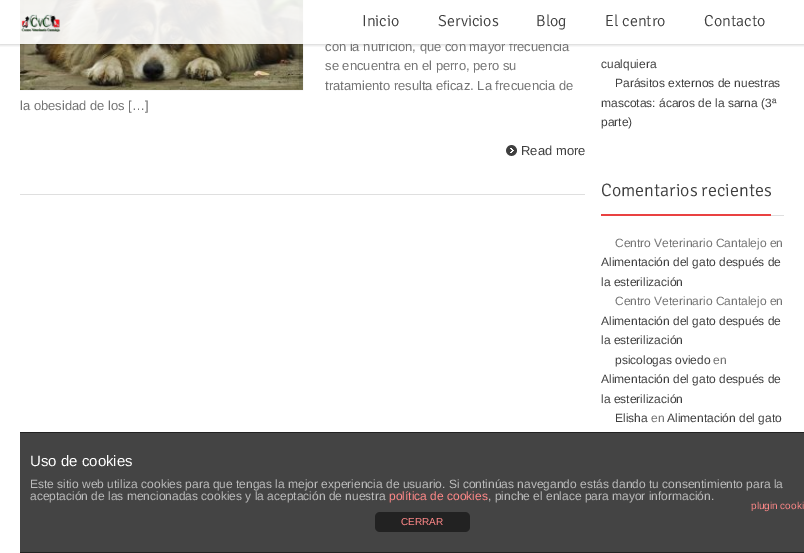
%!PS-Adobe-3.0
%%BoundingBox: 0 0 804 553
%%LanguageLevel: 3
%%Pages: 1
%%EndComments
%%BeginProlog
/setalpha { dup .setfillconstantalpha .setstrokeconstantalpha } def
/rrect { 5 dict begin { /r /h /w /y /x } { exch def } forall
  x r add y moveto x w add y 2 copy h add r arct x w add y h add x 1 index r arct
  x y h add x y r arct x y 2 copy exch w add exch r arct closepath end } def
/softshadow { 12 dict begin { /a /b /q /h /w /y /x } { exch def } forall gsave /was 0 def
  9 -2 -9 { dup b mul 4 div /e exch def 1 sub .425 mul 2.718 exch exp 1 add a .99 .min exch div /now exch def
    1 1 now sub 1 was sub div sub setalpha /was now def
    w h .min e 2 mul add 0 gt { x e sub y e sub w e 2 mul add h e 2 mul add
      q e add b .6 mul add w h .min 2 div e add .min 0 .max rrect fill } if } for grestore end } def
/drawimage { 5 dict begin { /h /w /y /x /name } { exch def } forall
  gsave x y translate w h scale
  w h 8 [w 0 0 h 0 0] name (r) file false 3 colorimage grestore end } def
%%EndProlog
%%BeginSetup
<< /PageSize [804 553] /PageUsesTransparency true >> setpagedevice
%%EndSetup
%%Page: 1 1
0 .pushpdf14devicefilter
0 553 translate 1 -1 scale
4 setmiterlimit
1 setgray
0 0 804 553 rectfill
(images/2.raw) 20 0 283 90 drawimage
0.1 setalpha
0 setgray
4 setlinewidth
22 -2 279 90 rectstroke
gsave
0 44 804 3 rectclip
1 setalpha
0 -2 804 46 0 2 0.3 softshadow
grestore
1 setalpha
0.875 setgray
20 194 565 1 rectfill
(images/3.raw) 506 145 11 11 drawimage
771 215 13 1 rectfill
0.914 0.255 0.255 setrgbcolor
601 214 170 2 rectfill
0.267 setgray
20 433 784 119 rectfill
0.133 setgray
20 432 784 1 rectfill
20 552 784 1 rectfill
375 512 95 20 5 rrect fill
/Signika-Light [16 0 0 -16 0 0] selectfont
0.247 setgray
605 26 moveto (El centro) show
704 26 moveto (Contacto) show
/LiberationSans-Regular [13 0 0 -13 0 0] selectfont
0.455 setgray
325 51 moveto (con la nutrición, que con mayor frecuencia) show
0.9 setalpha
1 setgray
20 0 542 44 rectfill
/Signika-Light [16 0 0 -16 0 0] selectfont
1 setalpha
0.247 setgray
536 26 moveto (Blog) show
438 26 moveto (Servicios) show
362 26 moveto (Inicio) show
(images/1.raw) 21 14 40 18 drawimage
/LiberationSans-Regular [13 0 0 -13 0 0] selectfont
0.455 setgray
325 70 moveto (se encuentra en el perro, pero su) show
325 90 moveto (tratamiento resulta eficaz. La frecuencia de) show
20 110 moveto (la obesidad de los […]) show
0.247 setgray
521 155 moveto (Read more) show
/LiberationSans-Regular [12 0 0 -12 0 0] selectfont
601 68 moveto (cualquiera) show
615 87 moveto (Parásitos externos de nuestras) show
601 107 moveto (mascotas: ácaros de la sarna \(3ª) show
601 126 moveto (parte\)) show
/Signika-Light [18 0 0 -18 0 0] selectfont
601 196 moveto (Comentarios recientes) show
/LiberationSans-Regular [12 0 0 -12 0 0] selectfont
0.455 setgray
615 247 moveto (Centro Veterinario Cantalejo en) show
0.247 setgray
601 266 moveto (Alimentación del gato después de) show
601 286 moveto (la esterilización) show
0.455 setgray
615 305 moveto (Centro Veterinario Cantalejo en) show
0.247 setgray
601 325 moveto (Alimentación del gato después de) show
601 344 moveto (la esterilización) show
615 364 moveto (psicologas oviedo) show
0.455 setgray
713 364 moveto (en) show
0.247 setgray
601 383 moveto (Alimentación del gato después de) show
601 403 moveto (la esterilización) show
615 422 moveto (Elisha) show
0.455 setgray
651 422 moveto (en) show
0.247 setgray
667 422 moveto (Alimentación del gato) show
/LiberationSans-Regular [15 0 0 -15 0 0] selectfont
1 setgray
30 466 moveto (Uso de cookies) show
/LiberationSans-Regular [12 0 0 -12 0 0] selectfont
0.733 setgray
30 488 moveto (Este sitio web utiliza cookies para que tengas la mejor experiencia de usuario. Si continúas navegando estás dando tu consentimiento para la) show
30 500 moveto (aceptación de las mencionadas cookies y la aceptación de nuestra) show
1 0.533 0.533 setrgbcolor
389 500 moveto (política de cookies) show
0.733 setgray
488 500 moveto (, pinche el enlace para mayor información.) show
/LiberationSans-Regular [10 0 0 -10 0 0] selectfont
1 0.533 0.533 setrgbcolor
751 509 moveto (plugin cooki) show
401 525 moveto (CERRAR) show
.poppdf14devicefilter showpage
%%EOF
